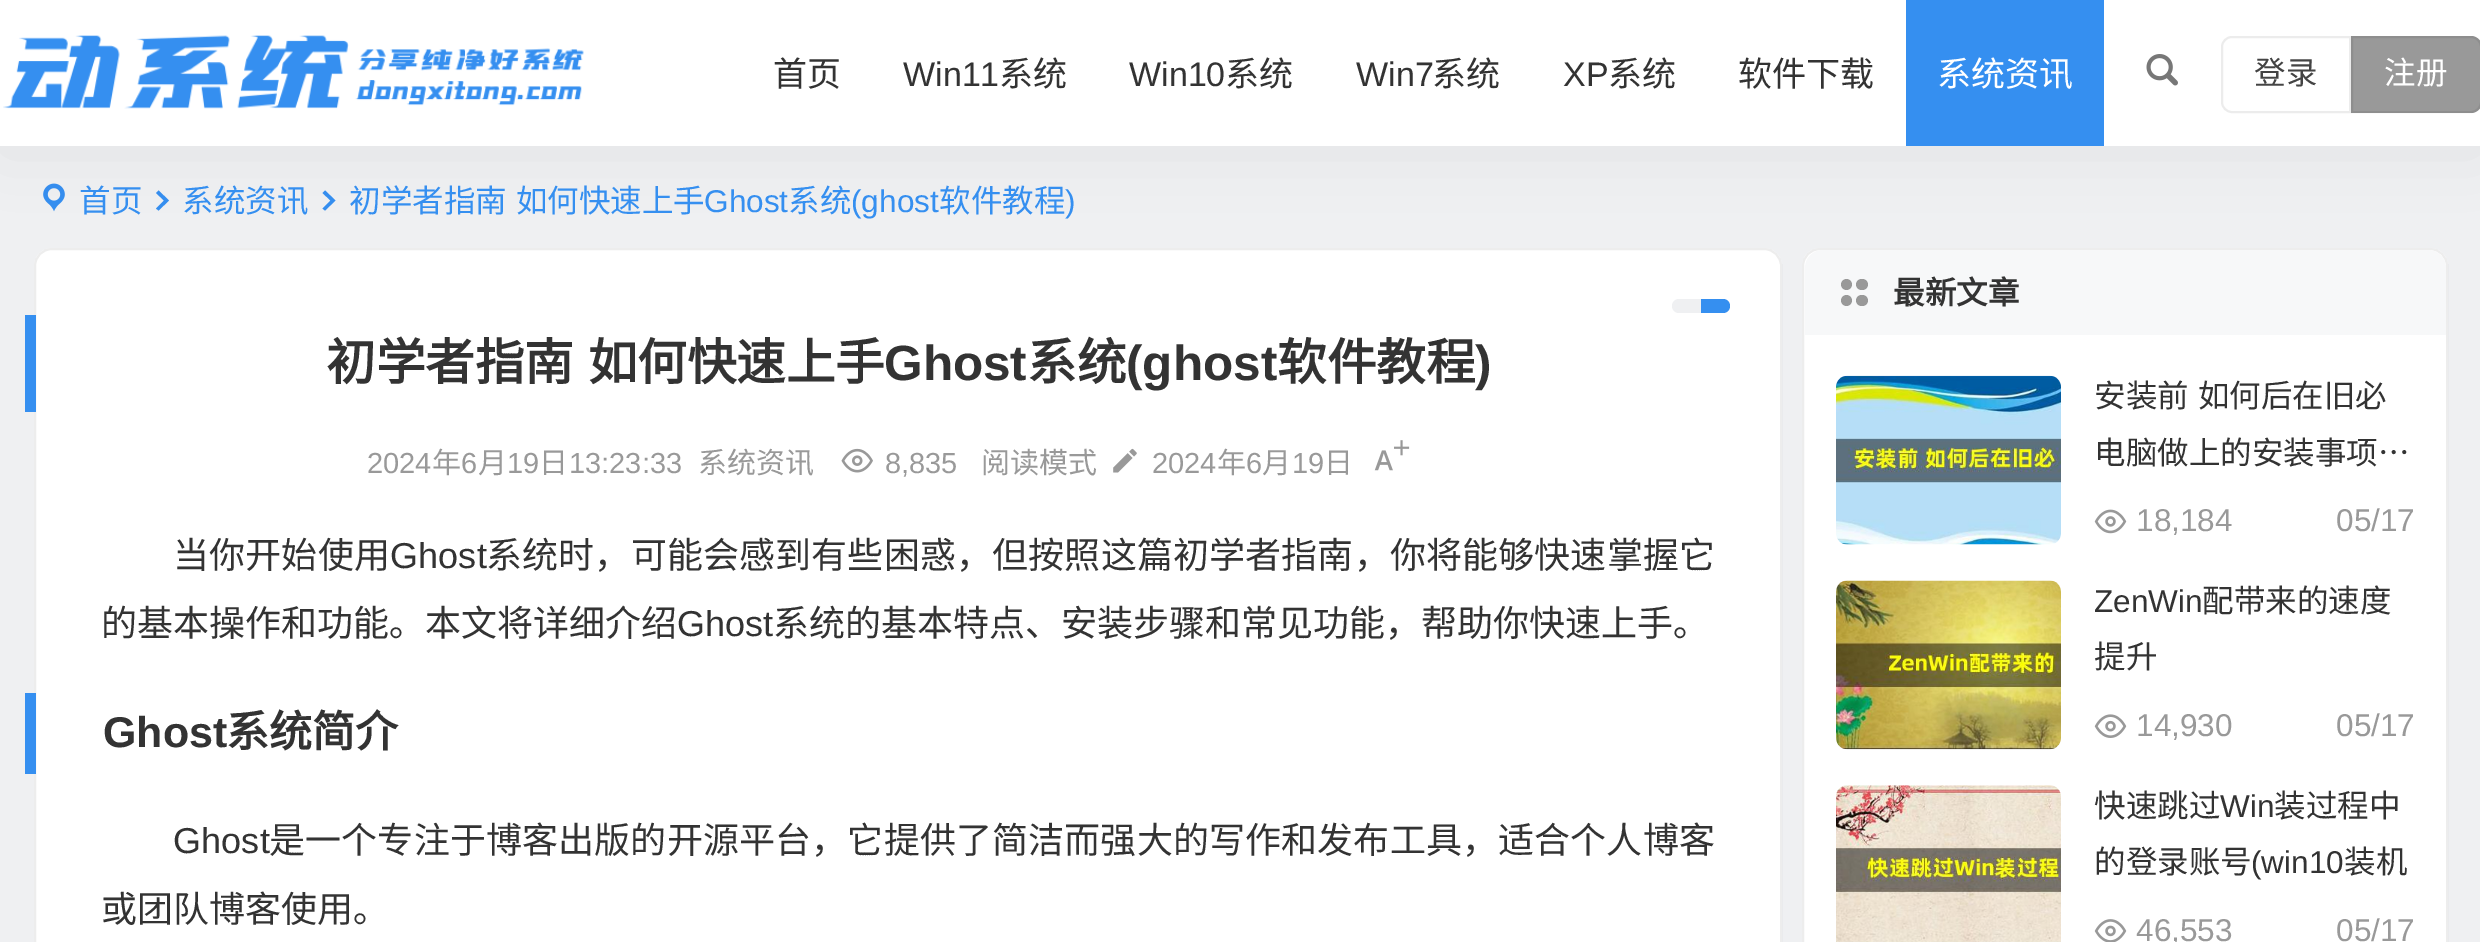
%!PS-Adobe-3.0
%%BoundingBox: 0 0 2480 942
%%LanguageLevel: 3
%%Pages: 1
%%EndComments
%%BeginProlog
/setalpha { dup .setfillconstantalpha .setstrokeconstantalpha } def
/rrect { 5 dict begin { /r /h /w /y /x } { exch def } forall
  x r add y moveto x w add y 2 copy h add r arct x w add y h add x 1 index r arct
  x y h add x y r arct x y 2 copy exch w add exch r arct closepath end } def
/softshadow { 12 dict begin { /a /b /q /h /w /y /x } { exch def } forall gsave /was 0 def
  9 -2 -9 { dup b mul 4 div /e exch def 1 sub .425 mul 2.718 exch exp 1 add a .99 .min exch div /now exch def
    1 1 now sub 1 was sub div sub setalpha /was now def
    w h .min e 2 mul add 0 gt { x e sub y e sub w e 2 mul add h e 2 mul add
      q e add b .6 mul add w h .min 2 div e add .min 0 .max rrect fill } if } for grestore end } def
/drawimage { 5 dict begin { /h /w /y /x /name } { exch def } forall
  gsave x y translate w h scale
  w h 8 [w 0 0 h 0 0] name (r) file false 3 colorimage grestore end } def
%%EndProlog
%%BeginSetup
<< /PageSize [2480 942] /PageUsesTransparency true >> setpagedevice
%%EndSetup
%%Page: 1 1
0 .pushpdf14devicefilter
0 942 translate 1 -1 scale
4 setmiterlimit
0.937 0.941 0.949 setrgbcolor
0 0 2480 942 rectfill
(images/3.raw) 43 183 22 29 drawimage
0.208 0.561 0.941 setrgbcolor
newpath 156 208.5 moveto 164 200.5 lineto 156 193 lineto 158.5 190.5 lineto 169 200.5 lineto 158.5 210.5 lineto closepath fill
newpath 322.5 208.5 moveto 330.5 200.5 lineto 322.5 193 lineto 325 190.5 lineto 335.5 200.5 lineto 325 210.5 lineto closepath fill
1 setgray
34 248 1748 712 18 rrect fill
0.07 setalpha
0 setgray
2 setlinewidth
35 249 1746 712 17 rrect stroke
1 setalpha
1 setgray
1802 248 646 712 18 rrect fill
0.07 setalpha
0 setgray
1803 249 644 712 17 rrect stroke
1 setalpha
0.969 0.973 0.976 setrgbcolor
newpath 1823 250 moveto 2428 250 lineto 2438 250 2446 258 2446 268 curveto 2446 335 lineto 1805 335 lineto 1805 268 lineto 1805 258 1813 250 1823 250 curveto closepath fill
0 setgray
0 7 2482 146 0 34 0.06 softshadow
1 setgray
0 0 2480 146 rectfill
(images/1.raw) 3 35 581 74 drawimage
0.208 0.561 0.941 setrgbcolor
1906 0 198 146 rectfill
(images/2.raw) 2146 54 32 32 drawimage
0.925 setgray
newpath 2232 37 moveto 2350 37 lineto 2350 112 lineto 2232 112 lineto 2226.5 112 2222 107.5 2222 102 curveto 2222 47 lineto 2222 41.5 2226.5 37 2232 37 curveto closepath stroke
0.6 setgray
newpath 2351 36 moveto 2471 36 lineto 2477 36 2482 41 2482 47 curveto 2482 102 lineto 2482 108 2477 113 2471 113 curveto 2351 113 lineto closepath fill
0.07 setalpha
0 setgray
newpath 2352 37 moveto 2471 37 lineto 2476.5 37 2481 41.5 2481 47 curveto 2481 102 lineto 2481 107.5 2476.5 112 2471 112 curveto 2352 112 lineto closepath stroke
1 setalpha
0.208 0.561 0.941 setrgbcolor
25 315 11 97 rectfill
0.937 0.941 0.949 setrgbcolor
1672 299 58 14 7 rrect fill
0.208 0.561 0.941 setrgbcolor
newpath 1701 299 moveto 1723 299 lineto 1727 299 1730 302 1730 306 curveto 1730 310 1727 313 1723 313 curveto 1701 313 lineto closepath fill
(images/4.raw) 841 448 32 25 drawimage
(images/5.raw) 1113 448 24 25 drawimage
(images/6.raw) 1394 440 16 16 drawimage
(images/7.raw) 1374 450 19 21 drawimage
25 693 11 81 rectfill
0.6 setgray
newpath 1846.5 284.5 5.5 0 360 arc closepath fill
1856 279 12 11 5.5 rrect fill
newpath 1846.5 300.5 5.5 0 360 arc closepath fill
1856 295 12 11 5.5 rrect fill
(images/8.raw) 1836 375 225 170 drawimage
(images/9.raw) 2094 509 33 25 drawimage
(images/10.raw) 1836 580 225 170 drawimage
(images/11.raw) 2094 714 33 24 drawimage
(images/12.raw) 1836 785 225 157 drawimage
(images/13.raw) 2094 919 33 23 drawimage
/NotoSansCJKSC-Regular [34 0 0 -34 0 0] selectfont
0.2 setgray
773 86 moveto (首页) show
/LiberationSans-Regular [34 0 0 -34 0 0] selectfont
903 86 moveto (Win11) show
/NotoSansCJKSC-Regular [34 0 0 -34 0 0] selectfont
999 86 moveto (系统) show
/LiberationSans-Regular [34 0 0 -34 0 0] selectfont
1129 86 moveto (Win10) show
/NotoSansCJKSC-Regular [34 0 0 -34 0 0] selectfont
1225 86 moveto (系统) show
/LiberationSans-Regular [34 0 0 -34 0 0] selectfont
1356 86 moveto (Win7) show
/NotoSansCJKSC-Regular [34 0 0 -34 0 0] selectfont
1432 86 moveto (系统) show
/LiberationSans-Regular [34 0 0 -34 0 0] selectfont
1563 86 moveto (XP) show
/NotoSansCJKSC-Regular [34 0 0 -34 0 0] selectfont
1608 86 moveto (系统) show
1738 86 moveto (软件下载) show
1 setgray
1937 86 moveto (系统资讯) show
/NotoSansCJKSC-Regular [31.5 0 0 -31.5 0 0] selectfont
0.267 setgray
2254 84 moveto (登录) show
1 setgray
2384 84 moveto (注册) show
0.208 0.561 0.941 setrgbcolor
79 212 moveto (首页) show
182 212 moveto (系统资讯) show
349 212 moveto 2 0 32 (初学者指南 如何快速上手) widthshow
/LiberationSans-Regular [31.5 0 0 -31.5 0 0] selectfont
704 212 moveto (Ghost) show
/NotoSansCJKSC-Regular [31.5 0 0 -31.5 0 0] selectfont
788 212 moveto (系统) show
/LiberationSans-Regular [31.5 0 0 -31.5 0 0] selectfont
851 212 moveto (\(ghost) show
/NotoSansCJKSC-Regular [31.5 0 0 -31.5 0 0] selectfont
939 212 moveto (软件教程) show
/LiberationSans-Regular [31.5 0 0 -31.5 0 0] selectfont
1065 212 moveto (\)) show
/NotoSansCJKSC-Bold [49.5 0 0 -49.5 0 0] selectfont
0.2 setgray
326 380 moveto 3 0 32 (初学者指南 如何快速上手) widthshow
/LiberationSans-Bold [49.5 0 0 -49.5 0 0] selectfont
884 380 moveto (Ghost) show
/NotoSansCJKSC-Bold [49.5 0 0 -49.5 0 0] selectfont
1027 380 moveto (系统) show
/LiberationSans-Bold [49.5 0 0 -49.5 0 0] selectfont
1126 380 moveto (\(ghost) show
/NotoSansCJKSC-Bold [49.5 0 0 -49.5 0 0] selectfont
1277 380 moveto (软件教程) show
/LiberationSans-Bold [49.5 0 0 -49.5 0 0] selectfont
1475 380 moveto (\)) show
/LiberationSans-Regular [29 0 0 -29 0 0] selectfont
0.6 setgray
367 473 moveto (2024) show
/NotoSansCJKSC-Regular [29 0 0 -29 0 0] selectfont
432 473 moveto (年) show
/LiberationSans-Regular [29 0 0 -29 0 0] selectfont
461 473 moveto (6) show
/NotoSansCJKSC-Regular [29 0 0 -29 0 0] selectfont
478 473 moveto (月) show
/LiberationSans-Regular [29 0 0 -29 0 0] selectfont
507 473 moveto (19) show
/NotoSansCJKSC-Regular [29 0 0 -29 0 0] selectfont
539 473 moveto (日) show
/LiberationSans-Regular [29 0 0 -29 0 0] selectfont
569 473 moveto (13:23:33) show
/NotoSansCJKSC-Regular [29 0 0 -29 0 0] selectfont
698 473 moveto (系统资讯) show
/LiberationSans-Regular [29 0 0 -29 0 0] selectfont
885 473 moveto (8,835) show
/NotoSansCJKSC-Regular [29 0 0 -29 0 0] selectfont
981 473 moveto (阅读模式) show
/LiberationSans-Regular [29 0 0 -29 0 0] selectfont
1152 473 moveto (2024) show
/NotoSansCJKSC-Regular [29 0 0 -29 0 0] selectfont
1217 473 moveto (年) show
/LiberationSans-Regular [29 0 0 -29 0 0] selectfont
1246 473 moveto (6) show
/NotoSansCJKSC-Regular [29 0 0 -29 0 0] selectfont
1262 473 moveto (月) show
/LiberationSans-Regular [29 0 0 -29 0 0] selectfont
1292 473 moveto (19) show
/NotoSansCJKSC-Regular [29 0 0 -29 0 0] selectfont
1324 473 moveto (日) show
/NotoSansCJKSC-Regular [36 0 0 -36 0 0] selectfont
0.2 setgray
173 568 moveto 0.15 0 (当你开始使用) ashow
/LiberationSans-Regular [36 0 0 -36 0 0] selectfont
390 568 moveto 0.15 0 (Ghost) ashow
/NotoSansCJKSC-Regular [36 0 0 -36 0 0] selectfont
486 568 moveto 0.15 0 (系统时，可能会感到有些困惑，但按照这篇初学者指南，你将能够快速掌握它) ashow
101 636 moveto (的基本操作和功能。本文将详细介绍) show
/LiberationSans-Regular [36 0 0 -36 0 0] selectfont
677 636 moveto (Ghost) show
/NotoSansCJKSC-Regular [36 0 0 -36 0 0] selectfont
773 636 moveto (系统的基本特点、安装步骤和常见功能，帮助你快速上手。) show
/LiberationSans-Bold [43 0 0 -43 0 0] selectfont
103 747 moveto (Ghost) show
/NotoSansCJKSC-Bold [43 0 0 -43 0 0] selectfont
226 747 moveto (系统简介) show
/LiberationSans-Regular [36 0 0 -36 0 0] selectfont
173 853 moveto 0.15 0 (Ghost) ashow
/NotoSansCJKSC-Regular [36 0 0 -36 0 0] selectfont
269 853 moveto 0.15 0 (是一个专注于博客出版的开源平台，它提供了简洁而强大的写作和发布工具，适合个人博客) ashow
101 922 moveto (或团队博客使用。) show
/NotoSansCJKSC-Bold [31.5 0 0 -31.5 0 0] selectfont
1893 304 moveto (最新文章) show
/NotoSansCJKSC-Regular [31.5 0 0 -31.5 0 0] selectfont
2094 407 moveto 2 0 32 (安装前 如何后在旧必) widthshow
2094 464 moveto (电脑做上的安装事项…) show
/LiberationSans-Regular [31.5 0 0 -31.5 0 0] selectfont
0.6 setgray
2136 531 moveto (18,184) show
2336 531 moveto (05/17) show
gsave
2095 574 319 119 rectclip
0.2 setgray
2094 612 moveto (ZenWin) show
grestore
/NotoSansCJKSC-Regular [31.5 0 0 -31.5 0 0] selectfont
0.2 setgray
2202 612 moveto (配带来的速度) show
2094 668 moveto (提升) show
/LiberationSans-Regular [31.5 0 0 -31.5 0 0] selectfont
0.6 setgray
2136 736 moveto (14,930) show
2336 736 moveto (05/17) show
/NotoSansCJKSC-Regular [31.5 0 0 -31.5 0 0] selectfont
0.2 setgray
2094 817 moveto (快速跳过) show
/LiberationSans-Regular [31.5 0 0 -31.5 0 0] selectfont
2220 817 moveto (Win) show
/NotoSansCJKSC-Regular [31.5 0 0 -31.5 0 0] selectfont
2274 817 moveto (装过程中) show
2094 873 moveto (的登录账号) show
/LiberationSans-Regular [31.5 0 0 -31.5 0 0] selectfont
2251 873 moveto (\(win10) show
/NotoSansCJKSC-Regular [31.5 0 0 -31.5 0 0] selectfont
2344 873 moveto (装机) show
/LiberationSans-Regular [31.5 0 0 -31.5 0 0] selectfont
0.6 setgray
2136 941 moveto (46,553) show
2336 941 moveto (05/17) show
.poppdf14devicefilter showpage
%%EOF
